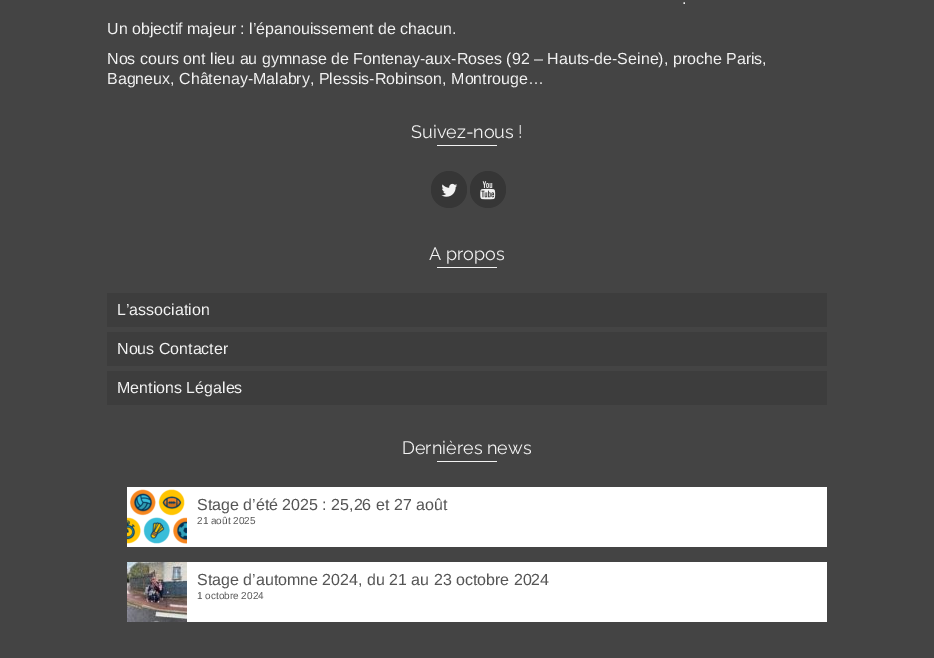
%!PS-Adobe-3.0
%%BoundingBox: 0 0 934 658
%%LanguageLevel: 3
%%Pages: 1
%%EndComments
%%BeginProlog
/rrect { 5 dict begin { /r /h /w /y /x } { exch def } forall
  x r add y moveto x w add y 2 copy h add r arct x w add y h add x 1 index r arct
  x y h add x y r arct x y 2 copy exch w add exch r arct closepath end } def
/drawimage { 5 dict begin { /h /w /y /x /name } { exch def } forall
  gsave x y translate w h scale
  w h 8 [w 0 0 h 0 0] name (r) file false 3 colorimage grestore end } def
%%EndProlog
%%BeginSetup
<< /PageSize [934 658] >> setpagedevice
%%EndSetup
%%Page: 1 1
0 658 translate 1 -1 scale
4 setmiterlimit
0.267 setgray
0 0 934 658 rectfill
0.949 setgray
437 145 60 1 rectfill
0.212 setgray
431 171 36 37 18 rrect fill
(images/1.raw) 441 183 17 14 drawimage
470 171 36 37 18 rrect fill
(images/2.raw) 480 181 16 19 drawimage
0.949 setgray
437 267 60 1 rectfill
0.239 setgray
107 293 720 34 rectfill
107 332 720 34 rectfill
107 371 720 34 rectfill
0.949 setgray
437 461 60 1 rectfill
1 setgray
127 487 700 60 rectfill
(images/3.raw) 127 489 60 55 drawimage
187 562 640 60 rectfill
(images/4.raw) 127 562 60 60 drawimage
/LiberationSans-Regular [16 0 0 -16 0 0] selectfont
0.949 setgray
682 4 moveto (.) show
107 34 moveto (Un objectif majeur : l’épanouissement de chacun.) show
107 64 moveto (Nos cours ont lieu au gymnase de Fontenay-aux-Roses \(92 – Hauts-de-Seine\), proche Paris,) show
107 84 moveto (Bagneux, Châtenay-Malabry, Plessis-Robinson, Montrouge…) show
/Raleway-Regular [18 0 0 -18 0 0] selectfont
411 138 moveto (Suivez-nous !) show
429 260 moveto (A propos) show
/LiberationSans-Regular [16 0 0 -16 0 0] selectfont
117 315 moveto (L’association) show
117 354 moveto (Nous Contacter) show
117 393 moveto (Mentions Légales) show
/Raleway-Regular [18 0 0 -18 0 0] selectfont
402 454 moveto (Dernières news) show
/LiberationSans-Regular [16 0 0 -16 0 0] selectfont
0.333 setgray
197 510 moveto (Stage d’été 2025 : 25,26 et 27 août) show
/LiberationSans-Regular [10 0 0 -10 0 0] selectfont
197 524 moveto (21 août 2025) show
/LiberationSans-Regular [16 0 0 -16 0 0] selectfont
197 585 moveto (Stage d’automne 2024, du 21 au 23 octobre 2024) show
/LiberationSans-Regular [10 0 0 -10 0 0] selectfont
197 599 moveto (1 octobre 2024) show
showpage
%%EOF
